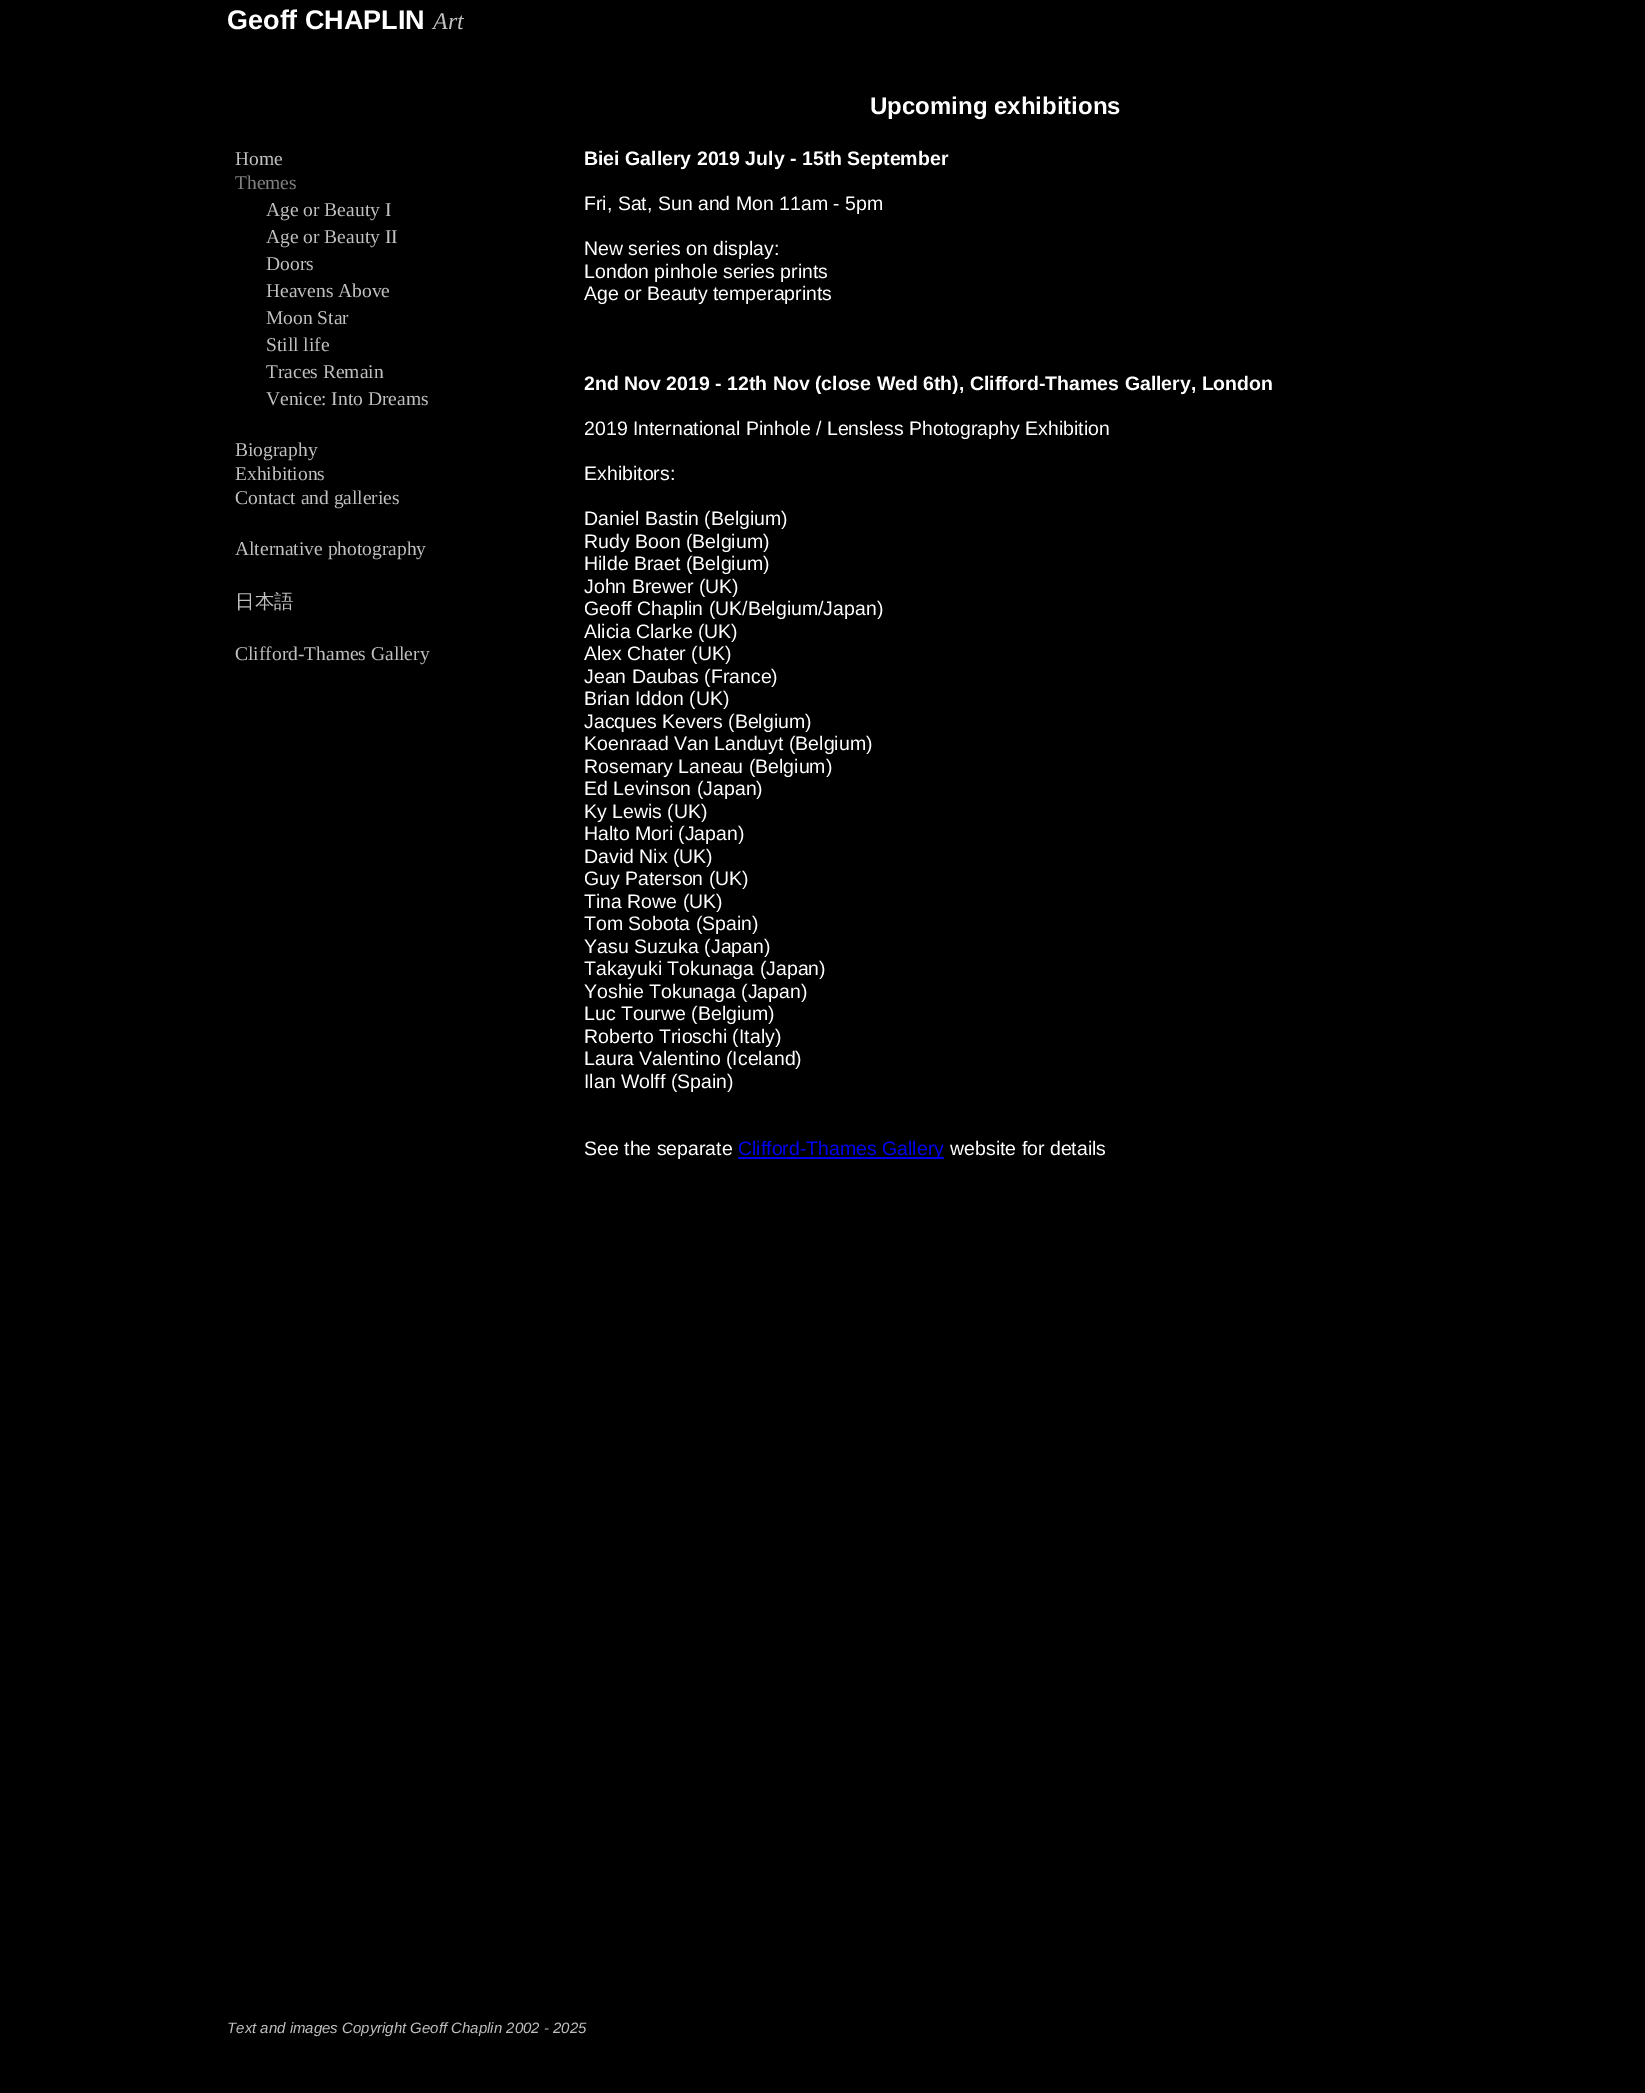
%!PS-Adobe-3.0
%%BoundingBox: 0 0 1645 2093
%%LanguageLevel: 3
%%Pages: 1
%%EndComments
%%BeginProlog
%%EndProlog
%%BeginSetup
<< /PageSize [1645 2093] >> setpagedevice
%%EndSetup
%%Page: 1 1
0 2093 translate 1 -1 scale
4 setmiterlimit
0 setgray
0 0 1645 2093 rectfill
0 0 0.933 setrgbcolor
738 1157 206 2 rectfill
/LiberationSans-Bold [27 0 0 -27 0 0] selectfont
1 setgray
227 29 moveto (Geoff CHAPLIN) show
/LiberationSerif-Italic [24 0 0 -24 0 0] selectfont
0.753 setgray
433 29 moveto (Art) show
/LiberationSerif-Regular [19.5 0 0 -19.5 0 0] selectfont
235 165 moveto (Home) show
0.502 setgray
235 189 moveto (Themes) show
0.753 setgray
266 216 moveto (Age or Beauty I) show
266 243 moveto (Age or Beauty II) show
266 270 moveto (Doors) show
266 297 moveto (Heavens Above) show
266 324 moveto (Moon Star) show
266 351 moveto (Still life) show
266 378 moveto (Traces Remain) show
266 405 moveto (Venice: Into Dreams) show
235 456 moveto (Biography) show
235 480 moveto (Exhibitions) show
235 504 moveto (Contact and galleries) show
235 555 moveto (Alternative photography) show
/WenQuanYiZenHei-Medium [19.5 0 0 -19.5 0 0] selectfont
235 608 moveto (日本語) show
/LiberationSerif-Regular [19.5 0 0 -19.5 0 0] selectfont
235 660 moveto (Clifford-Thames Gallery) show
/LiberationSans-Bold [24 0 0 -24 0 0] selectfont
1 setgray
870 114 moveto (Upcoming exhibitions) show
/LiberationSans-Bold [19.5 0 0 -19.5 0 0] selectfont
584 165 moveto (Biei Gallery 2019 July - 15th September) show
/LiberationSans-Regular [19.5 0 0 -19.5 0 0] selectfont
584 210 moveto (Fri, Sat, Sun and Mon 11am - 5pm) show
584 255 moveto (New series on display:) show
584 278 moveto (London pinhole series prints) show
584 300 moveto (Age or Beauty temperaprints) show
/LiberationSans-Bold [19.5 0 0 -19.5 0 0] selectfont
584 390 moveto (2nd Nov 2019 - 12th Nov \(close Wed 6th\), Clifford-Thames Gallery, London) show
/LiberationSans-Regular [19.5 0 0 -19.5 0 0] selectfont
584 435 moveto (2019 International Pinhole / Lensless Photography Exhibition) show
584 480 moveto (Exhibitors:) show
584 525 moveto (Daniel Bastin \(Belgium\)) show
584 548 moveto (Rudy Boon \(Belgium\)) show
584 570 moveto (Hilde Braet \(Belgium\)) show
584 593 moveto (John Brewer \(UK\)) show
584 615 moveto (Geoff Chaplin \(UK/Belgium/Japan\)) show
584 638 moveto (Alicia Clarke \(UK\)) show
584 660 moveto (Alex Chater \(UK\)) show
584 683 moveto (Jean Daubas \(France\)) show
584 705 moveto (Brian Iddon \(UK\)) show
584 728 moveto (Jacques Kevers \(Belgium\)) show
584 750 moveto (Koenraad Van Landuyt \(Belgium\)) show
584 773 moveto (Rosemary Laneau \(Belgium\)) show
584 795 moveto (Ed Levinson \(Japan\)) show
584 818 moveto (Ky Lewis \(UK\)) show
584 840 moveto (Halto Mori \(Japan\)) show
584 863 moveto (David Nix \(UK\)) show
584 885 moveto (Guy Paterson \(UK\)) show
584 908 moveto (Tina Rowe \(UK\)) show
584 930 moveto (Tom Sobota \(Spain\)) show
584 953 moveto (Yasu Suzuka \(Japan\)) show
584 975 moveto (Takayuki Tokunaga \(Japan\)) show
584 998 moveto (Yoshie Tokunaga \(Japan\)) show
584 1020 moveto (Luc Tourwe \(Belgium\)) show
584 1043 moveto (Roberto Trioschi \(Italy\)) show
584 1065 moveto (Laura Valentino \(Iceland\)) show
584 1088 moveto (Ilan Wolff \(Spain\)) show
584 1155 moveto (See the separate) show
0 0 0.933 setrgbcolor
738 1155 moveto (Clifford-Thames Gallery) show
1 setgray
950 1155 moveto (website for details) show
/LiberationSans-Italic [15 0 0 -15 0 0] selectfont
0.753 setgray
227 2033 moveto (Text and images Copyright Geoff Chaplin 2002 - 2025) show
showpage
%%EOF
